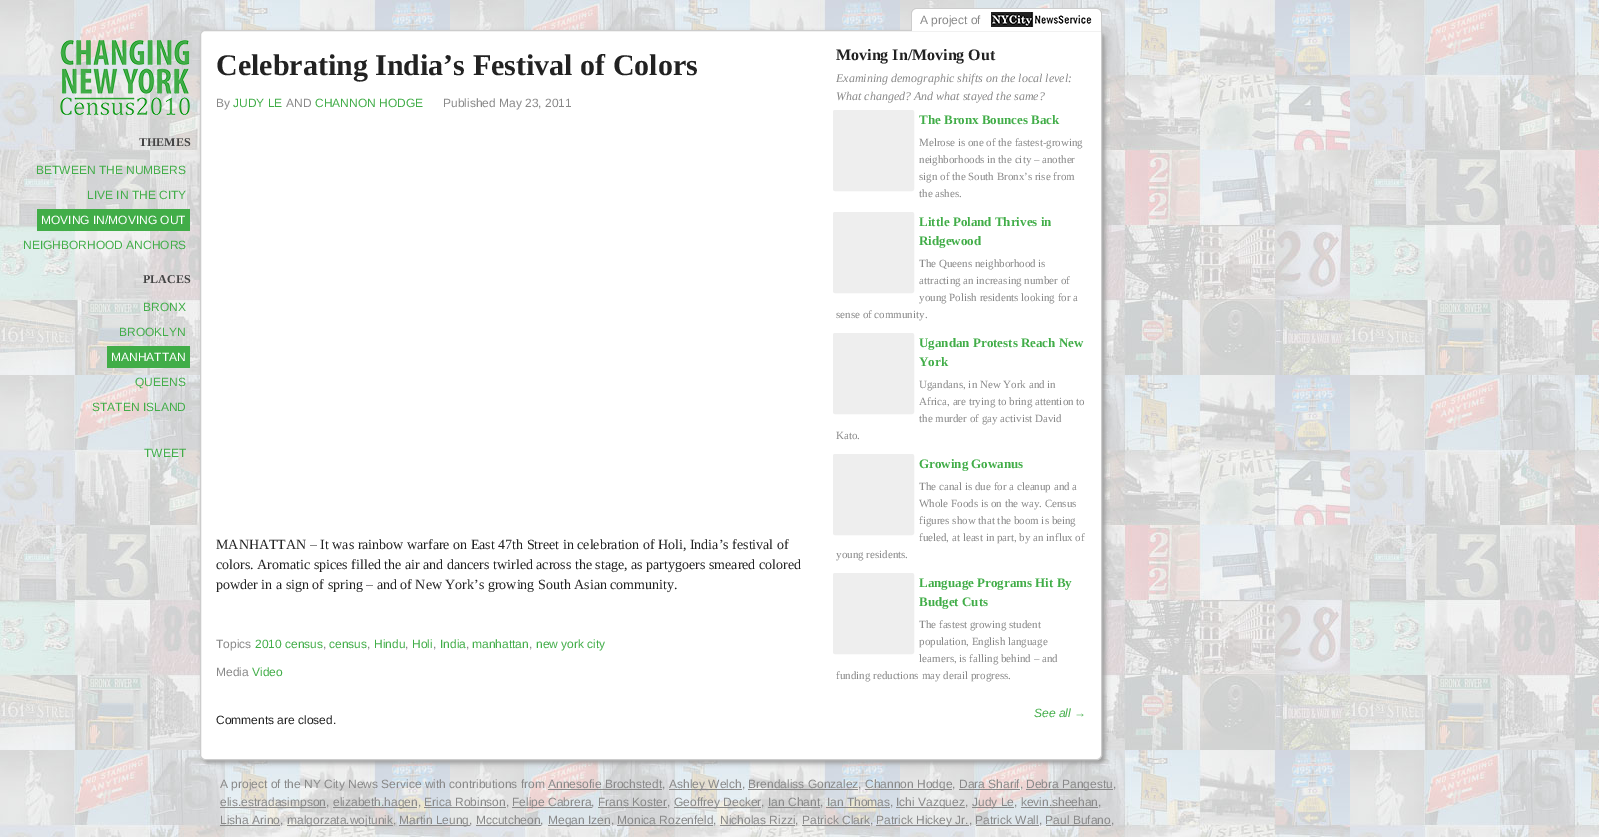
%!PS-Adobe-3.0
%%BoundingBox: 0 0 1599 837
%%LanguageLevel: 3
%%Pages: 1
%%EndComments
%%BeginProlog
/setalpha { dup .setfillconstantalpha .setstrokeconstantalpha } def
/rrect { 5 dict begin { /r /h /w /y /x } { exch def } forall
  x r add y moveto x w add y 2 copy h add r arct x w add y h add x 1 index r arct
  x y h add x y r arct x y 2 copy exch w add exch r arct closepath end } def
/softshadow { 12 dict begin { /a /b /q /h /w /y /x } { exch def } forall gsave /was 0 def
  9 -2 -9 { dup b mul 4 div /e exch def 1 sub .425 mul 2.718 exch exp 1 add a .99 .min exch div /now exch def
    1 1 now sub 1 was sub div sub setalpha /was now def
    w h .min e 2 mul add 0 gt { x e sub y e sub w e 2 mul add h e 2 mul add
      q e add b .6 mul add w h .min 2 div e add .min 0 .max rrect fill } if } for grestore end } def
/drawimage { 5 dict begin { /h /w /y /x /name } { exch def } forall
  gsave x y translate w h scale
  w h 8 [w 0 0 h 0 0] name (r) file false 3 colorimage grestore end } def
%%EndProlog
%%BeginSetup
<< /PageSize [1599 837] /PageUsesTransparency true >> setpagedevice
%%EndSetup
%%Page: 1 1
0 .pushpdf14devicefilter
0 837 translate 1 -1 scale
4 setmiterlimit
1 setgray
0 0 1599 837 rectfill
(images/1.raw) 0 0 1599 837 drawimage
0.6 setgray
203 33 902 730 5 2.5 1 softshadow
1 setgray
newpath 205 30.5 moveto 1101.5 30.5 lineto 1101.5 755 lineto 1101.5 757.5 1099.5 759.5 1097 759.5 curveto 205 759.5 lineto 202.5 759.5 200.5 757.5 200.5 755 curveto 200.5 35 lineto 200.5 32.5 202.5 30.5 205 30.5 curveto closepath gsave fill grestore
0.8 setgray
stroke
1 setgray
newpath 916 8 moveto 1097 8 lineto 1100 8 1102 10 1102 13 curveto 1102 31 lineto 911 31 lineto 911 13 lineto 911 10 913 8 916 8 curveto closepath fill
0.8 setgray
newpath 916 8 moveto 1097 8 lineto 1100 8 1102 10 1102 13 curveto 1102 31 lineto 911 31 lineto 911 13 lineto 911 10 913 8 916 8 curveto closepath 916 9 moveto 1097 9 lineto 1099 9 1101 11 1101 13 curveto 1101 31 lineto 912 31 lineto 912 13 lineto 912 11 914 9 916 9 curveto closepath eofill
(images/2.raw) 991 12 101 15 drawimage
(images/3.raw) 60 40 130 75 drawimage
0.255 0.678 0.282 setrgbcolor
37 209 153 22 rectfill
107 346 83 22 rectfill
0.933 setgray
834.5 111.5 78 78 0.5 rrect gsave fill grestore
3 setlinewidth
stroke
834.5 213.5 78 78 0.5 rrect gsave fill grestore
stroke
834.5 334.5 78 78 0.5 rrect gsave fill grestore
stroke
834.5 455.5 78 78 0.5 rrect gsave fill grestore
stroke
834.5 574.5 78 78 0.5 rrect gsave fill grestore
stroke
0.533 setgray
669 789 73 1 rectfill
865 789 87 1 rectfill
1026 789 87 1 rectfill
548 789 114 1 rectfill
748 789 110 1 rectfill
959 789 61 1 rectfill
220 807 106 1 rectfill
333 807 84 1 rectfill
512 807 80 1 rectfill
674 807 87 1 rectfill
896 807 69 1 rectfill
972 807 42 1 rectfill
424 807 82 1 rectfill
598 807 69 1 rectfill
768 807 52 1 rectfill
826 807 64 1 rectfill
1021 807 77 1 rectfill
220 825 60 1 rectfill
287 825 106 1 rectfill
399 825 71 1 rectfill
548 825 62 1 rectfill
876 825 93 1 rectfill
476 825 65 1 rectfill
617 825 96 1 rectfill
720 825 75 1 rectfill
802 825 68 1 rectfill
976 825 63 1 rectfill
1046 825 65 1 rectfill
/LiberationSans-Regular [12 0 0 -12 0 0] selectfont
920 24 moveto (A project of) show
/LiberationSerif-Bold [12 0 0 -12 0 0] selectfont
0.267 setgray
139 146 moveto (THEMES) show
/LiberationSans-Regular [12 0 0 -12 0 0] selectfont
0.255 0.678 0.282 setrgbcolor
36 174 moveto (BETWEEN THE NUMBERS) show
87 199 moveto (LIVE IN THE CITY) show
1 setgray
41 224 moveto (MOVING IN/MOVING OUT) show
0.255 0.678 0.282 setrgbcolor
23 249 moveto (NEIGHBORHOOD ANCHORS) show
/LiberationSerif-Bold [12 0 0 -12 0 0] selectfont
0.267 setgray
143 283 moveto (PLACES) show
/LiberationSans-Regular [12 0 0 -12 0 0] selectfont
0.255 0.678 0.282 setrgbcolor
143 311 moveto (BRONX) show
119 336 moveto (BROOKLYN) show
1 setgray
111 361 moveto (MANHATTAN) show
0.255 0.678 0.282 setrgbcolor
135 386 moveto (QUEENS) show
92 411 moveto (STATEN ISLAND) show
144 457 moveto (TWEET) show
/LiberationSerif-Bold [30 0 0 -30 0 0] selectfont
0.133 setgray
216 75 moveto (Celebrating India’s Festival of Colors) show
/LiberationSans-Regular [12 0 0 -12 0 0] selectfont
0.533 setgray
216 107 moveto (By) show
0.255 0.678 0.282 setrgbcolor
233 107 moveto (JUDY LE) show
0.533 setgray
286 107 moveto (AND) show
0.255 0.678 0.282 setrgbcolor
315 107 moveto (CHANNON HODGE) show
0.533 setgray
443 107 moveto (Published May 23, 2011) show
/LiberationSerif-Regular [14 0 0 -14 0 0] selectfont
0.133 setgray
216 549 moveto (MANHATTAN – It was rainbow warfare on East 47th Street in celebration of Holi, India’s festival of) show
216 569 moveto (colors. Aromatic spices filled the air and dancers twirled across the stage, as partygoers smeared colored) show
216 589 moveto (powder in a sign of spring – and of New York’s growing South Asian community.) show
/LiberationSans-Regular [12 0 0 -12 0 0] selectfont
0.533 setgray
216 648 moveto (Topics) show
0.255 0.678 0.282 setrgbcolor
255 648 moveto (2010 census) show
0.533 setgray
323 648 moveto (,) show
0.255 0.678 0.282 setrgbcolor
329 648 moveto (census) show
0.533 setgray
367 648 moveto (,) show
0.255 0.678 0.282 setrgbcolor
374 648 moveto (Hindu) show
0.533 setgray
405 648 moveto (,) show
0.255 0.678 0.282 setrgbcolor
412 648 moveto (Holi) show
0.533 setgray
433 648 moveto (,) show
0.255 0.678 0.282 setrgbcolor
440 648 moveto (India) show
0.533 setgray
466 648 moveto (,) show
0.255 0.678 0.282 setrgbcolor
472 648 moveto (manhattan) show
0.533 setgray
529 648 moveto (,) show
0.255 0.678 0.282 setrgbcolor
536 648 moveto (new york city) show
0.533 setgray
216 676 moveto (Media) show
0.255 0.678 0.282 setrgbcolor
252 676 moveto (Video) show
0.133 setgray
216 724 moveto (Comments are closed.) show
/LiberationSerif-Bold [16 0 0 -16 0 0] selectfont
836 60 moveto (Moving In/Moving Out) show
/LiberationSerif-Italic [12 0 0 -12 0 0] selectfont
0.533 setgray
836 82 moveto (Examining demographic shifts on the local level:) show
836 100 moveto (What changed? And what stayed the same?) show
/LiberationSerif-Bold [13 0 0 -13 0 0] selectfont
0.255 0.678 0.282 setrgbcolor
919 124 moveto (The Bronx Bounces Back) show
/LiberationSerif-Regular [11 0 0 -11 0 0] selectfont
0.533 setgray
919 146 moveto (Melrose is one of the fastest-growing) show
919 163 moveto (neighborhoods in the city – another) show
919 180 moveto (sign of the South Bronx’s rise from) show
919 197 moveto (the ashes.) show
/LiberationSerif-Bold [13 0 0 -13 0 0] selectfont
0.255 0.678 0.282 setrgbcolor
919 226 moveto (Little Poland Thrives in) show
919 245 moveto (Ridgewood) show
/LiberationSerif-Regular [11 0 0 -11 0 0] selectfont
0.533 setgray
919 267 moveto (The Queens neighborhood is) show
919 284 moveto (attracting an increasing number of) show
919 301 moveto (young Polish residents looking for a) show
836 318 moveto (sense of community.) show
/LiberationSerif-Bold [13 0 0 -13 0 0] selectfont
0.255 0.678 0.282 setrgbcolor
919 347 moveto (Ugandan Protests Reach New) show
919 366 moveto (York) show
/LiberationSerif-Regular [11 0 0 -11 0 0] selectfont
0.533 setgray
919 388 moveto (Ugandans, in New York and in) show
919 405 moveto (Africa, are trying to bring attention to) show
919 422 moveto (the murder of gay activist David) show
836 439 moveto (Kato.) show
/LiberationSerif-Bold [13 0 0 -13 0 0] selectfont
0.255 0.678 0.282 setrgbcolor
919 468 moveto (Growing Gowanus) show
/LiberationSerif-Regular [11 0 0 -11 0 0] selectfont
0.533 setgray
919 490 moveto (The canal is due for a cleanup and a) show
919 507 moveto (Whole Foods is on the way. Census) show
919 524 moveto (figures show that the boom is being) show
919 541 moveto (fueled, at least in part, by an influx of) show
836 558 moveto (young residents.) show
/LiberationSerif-Bold [13 0 0 -13 0 0] selectfont
0.255 0.678 0.282 setrgbcolor
919 587 moveto (Language Programs Hit By) show
919 606 moveto (Budget Cuts) show
/LiberationSerif-Regular [11 0 0 -11 0 0] selectfont
0.533 setgray
919 628 moveto (The fastest growing student) show
919 645 moveto (population, English language) show
919 662 moveto (learners, is falling behind – and) show
836 679 moveto (funding reductions may derail progress.) show
/LiberationSans-Italic [12 0 0 -12 0 0] selectfont
0.255 0.678 0.282 setrgbcolor
1034 717 moveto (See all →) show
/LiberationSans-Regular [12 0 0 -12 0 0] selectfont
0.533 setgray
220 788 moveto (A project of the NY City News Service with contributions from Annesofie Brochstedt,) show
669 788 moveto (Ashley Welch, Brendaliss Gonzalez,) show
865 788 moveto (Channon Hodge, Dara Sharif,) show
1026 788 moveto (Debra Pangestu,) show
220 806 moveto (elis.estradasimpson,) show
333 806 moveto (elizabeth.hagen, Erica Robinson,) show
512 806 moveto (Felipe Cabrera, Frans Koster,) show
674 806 moveto (Geoffrey Decker, Ian Chant, Ian Thomas,) show
896 806 moveto (Ichi Vazquez,) show
972 806 moveto (Judy Le, kevin.sheehan,) show
220 824 moveto (Lisha Arino,) show
287 824 moveto (malgorzata.wojtunik,) show
399 824 moveto (Martin Leung, Mccutcheon,) show
548 824 moveto (Megan Izen, Monica Rozenfeld, Nicholas Rizzi, Patrick Clark,) show
876 824 moveto (Patrick Hickey Jr., Patrick Wall, Paul Bufano,) show
.poppdf14devicefilter showpage
%%EOF
